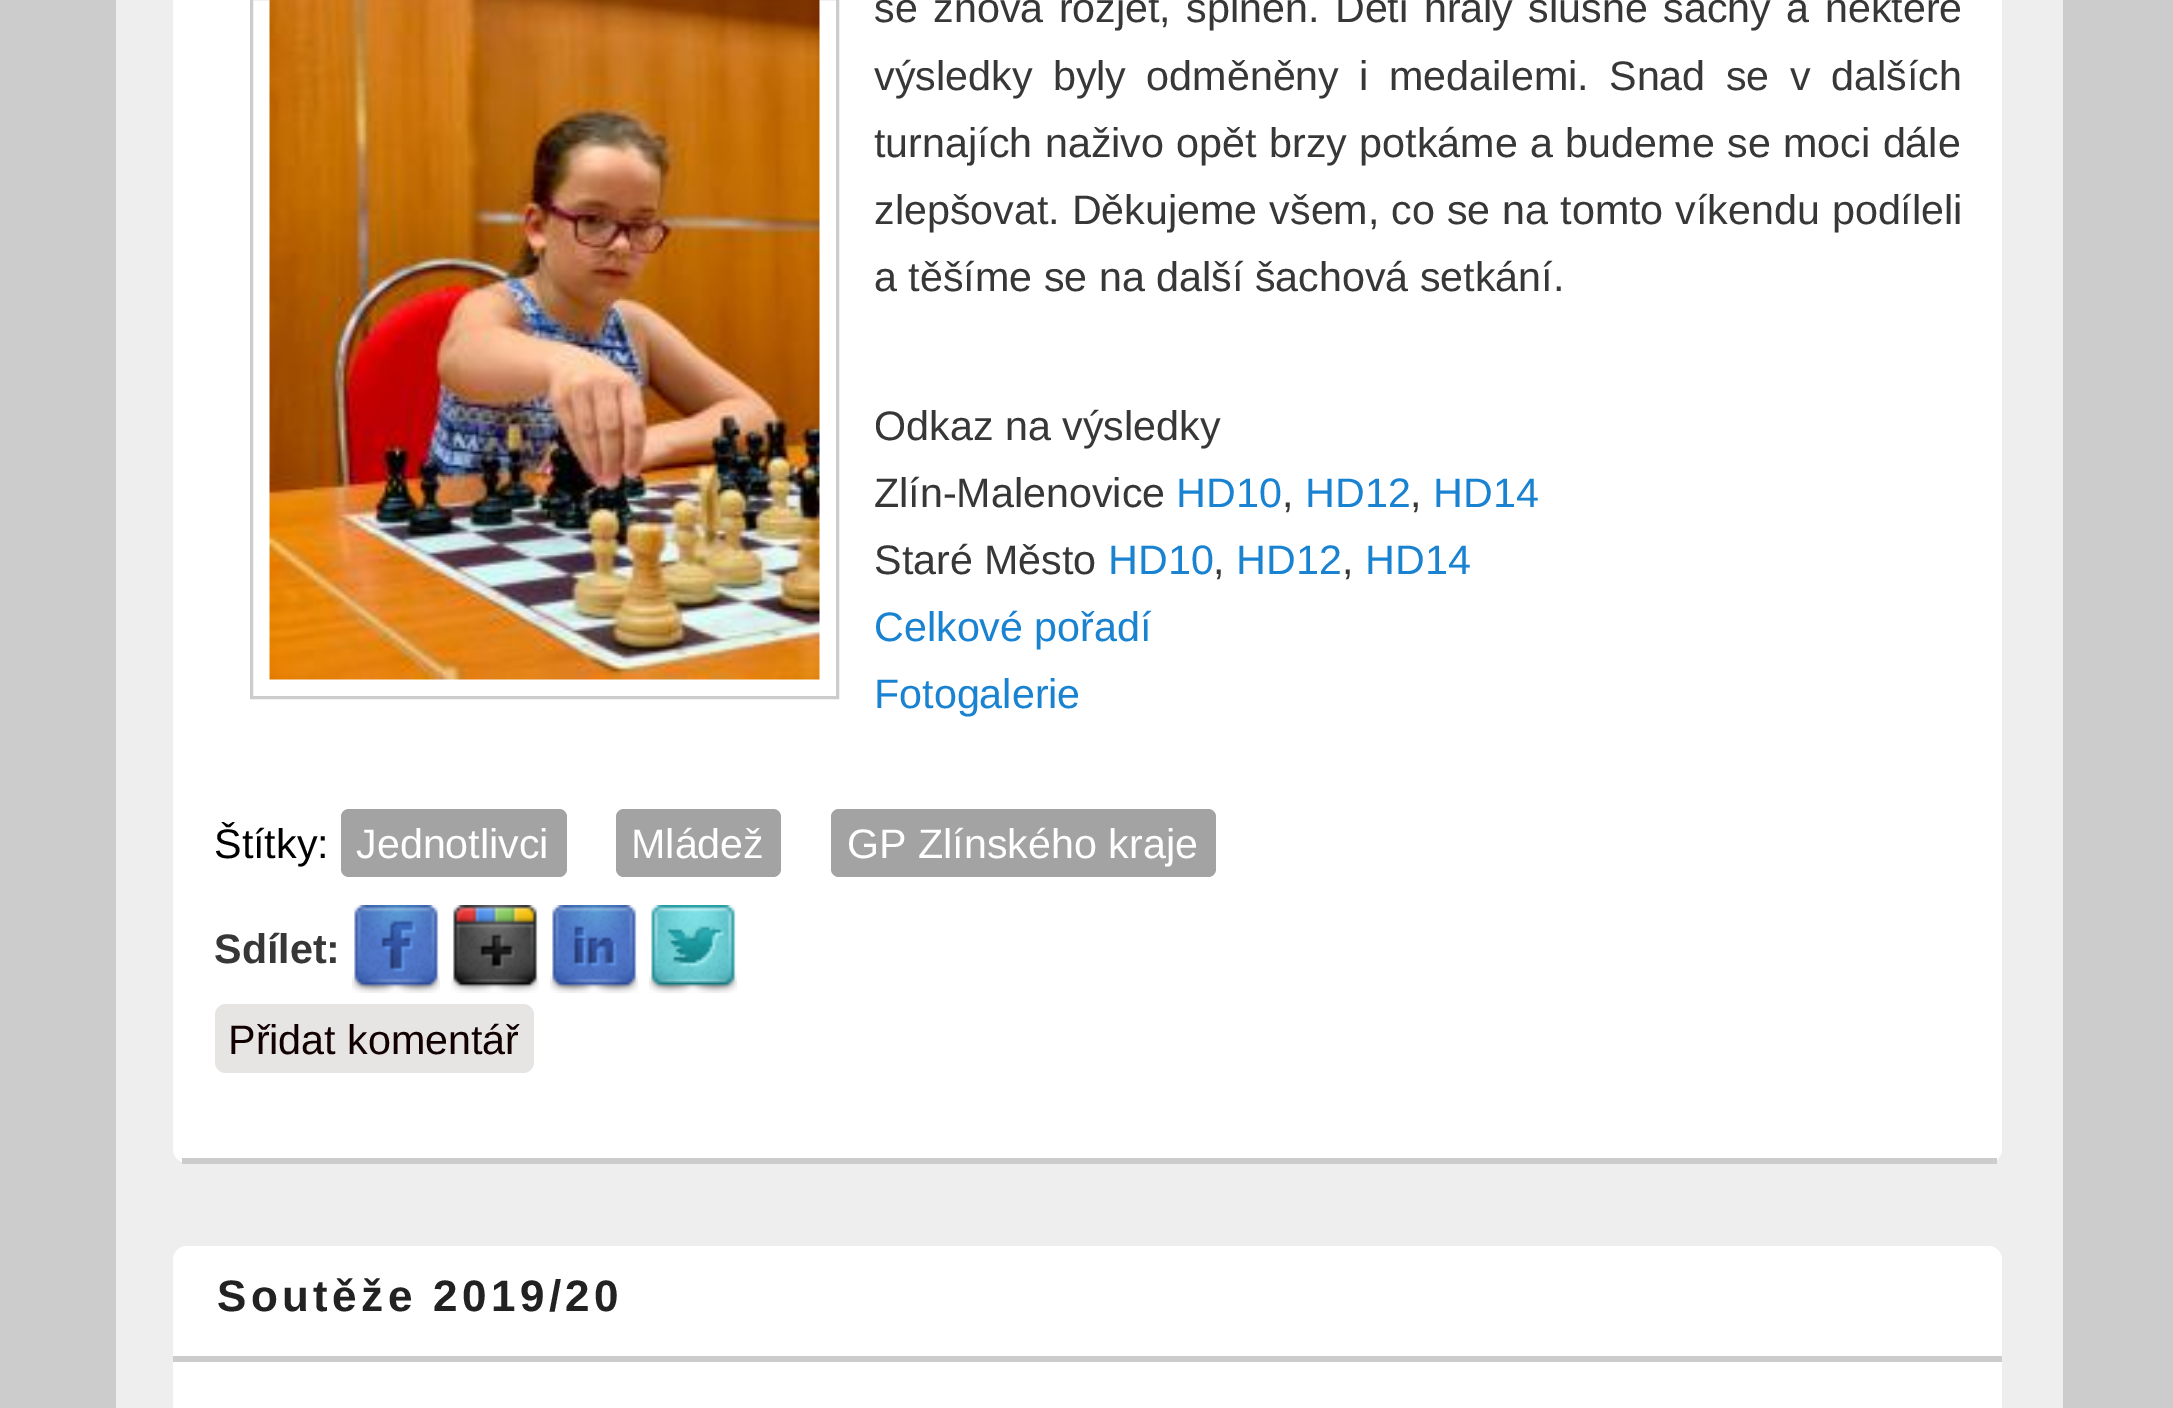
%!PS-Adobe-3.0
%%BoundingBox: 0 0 2173 1408
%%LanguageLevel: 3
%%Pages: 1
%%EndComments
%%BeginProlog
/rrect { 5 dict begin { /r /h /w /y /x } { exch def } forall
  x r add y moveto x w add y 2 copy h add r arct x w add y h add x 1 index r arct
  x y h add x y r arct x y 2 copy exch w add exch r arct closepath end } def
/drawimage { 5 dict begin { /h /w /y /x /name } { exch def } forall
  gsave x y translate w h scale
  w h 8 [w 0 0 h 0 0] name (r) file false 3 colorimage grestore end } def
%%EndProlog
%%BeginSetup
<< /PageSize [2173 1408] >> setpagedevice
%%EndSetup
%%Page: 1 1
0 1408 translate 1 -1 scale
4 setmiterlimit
0.8 setgray
0 0 2173 1408 rectfill
0.933 setgray
116 0 1947 1408 rectfill
1 setgray
173 -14 1829 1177 14 rrect fill
0.8 setgray
182 1158 1815 6 rectfill
3 setlinewidth
251.5 -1.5 586 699 rectstroke
(images/1.raw) 269 0 551 680 drawimage
0.639 setgray
341 809 226 68 8 rrect fill
616 809 165 68 8 rrect fill
831 809 385 68 8 rrect fill
(images/2.raw) 352 905 88 88 drawimage
(images/3.raw) 451 905 88 88 drawimage
(images/4.raw) 550 905 88 88 drawimage
(images/5.raw) 649 905 88 88 drawimage
0.906 0.898 0.89 setrgbcolor
215 1004 319 69 11 rrect fill
1 setgray
173 1246 1829 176 14 rrect fill
0.8 setgray
173 1356 1829 6 rectfill
/LiberationSans-Regular [41.25 0 0 -41.25 0 0] selectfont
0.216 setgray
874 22 moveto 4 0 32 (se znova rozjet, splněn. Děti hrály slušné šachy a některé) widthshow
874 90 moveto 9 0 32 (výsledky byly odměněny i medailemi. Snad se v dalších) widthshow
874 157 moveto 1 0 32 (turnajích naživo opět brzy potkáme a budeme se moci dále) widthshow
874 224 moveto 0.5 0 32 (zlepšovat. Děkujeme všem, co se na tomto víkendu podíleli) widthshow
874 291 moveto (a těšíme se na další šachová setkání.) show
874 440 moveto (Odkaz na výsledky) show
874 507 moveto (Zlín-Malenovice) show
0.098 0.51 0.82 setrgbcolor
1176 507 moveto (HD10) show
0.216 setgray
1282 507 moveto (,) show
0.098 0.51 0.82 setrgbcolor
1305 507 moveto (HD12) show
0.216 setgray
1410 507 moveto (,) show
0.098 0.51 0.82 setrgbcolor
1433 507 moveto (HD14) show
0.216 setgray
874 574 moveto (Staré Město) show
0.098 0.51 0.82 setrgbcolor
1108 574 moveto (HD10) show
0.216 setgray
1213 574 moveto (,) show
0.098 0.51 0.82 setrgbcolor
1236 574 moveto (HD12) show
0.216 setgray
1342 574 moveto (,) show
0.098 0.51 0.82 setrgbcolor
1365 574 moveto (HD14) show
874 641 moveto (Celkové pořadí) show
874 708 moveto (Fotogalerie) show
0 setgray
214 858 moveto (Štítky:) show
1 setgray
356 858 moveto (Jednotlivci) show
631 858 moveto (Mládež) show
847 858 moveto (GP Zlínského kraje) show
/LiberationSans-Bold [41.25 0 0 -41.25 0 0] selectfont
0.216 setgray
214 963 moveto (Sdílet:) show
/LiberationSans-Regular [41.25 0 0 -41.25 0 0] selectfont
0.063 0.004 0 setrgbcolor
228 1054 moveto (Přidat komentář) show
/LiberationSans-Bold [44 0 0 -44 0 0] selectfont
0.133 setgray
217 1311 moveto 4.4 0 (Soutěže 2019/20) ashow
showpage
%%EOF
